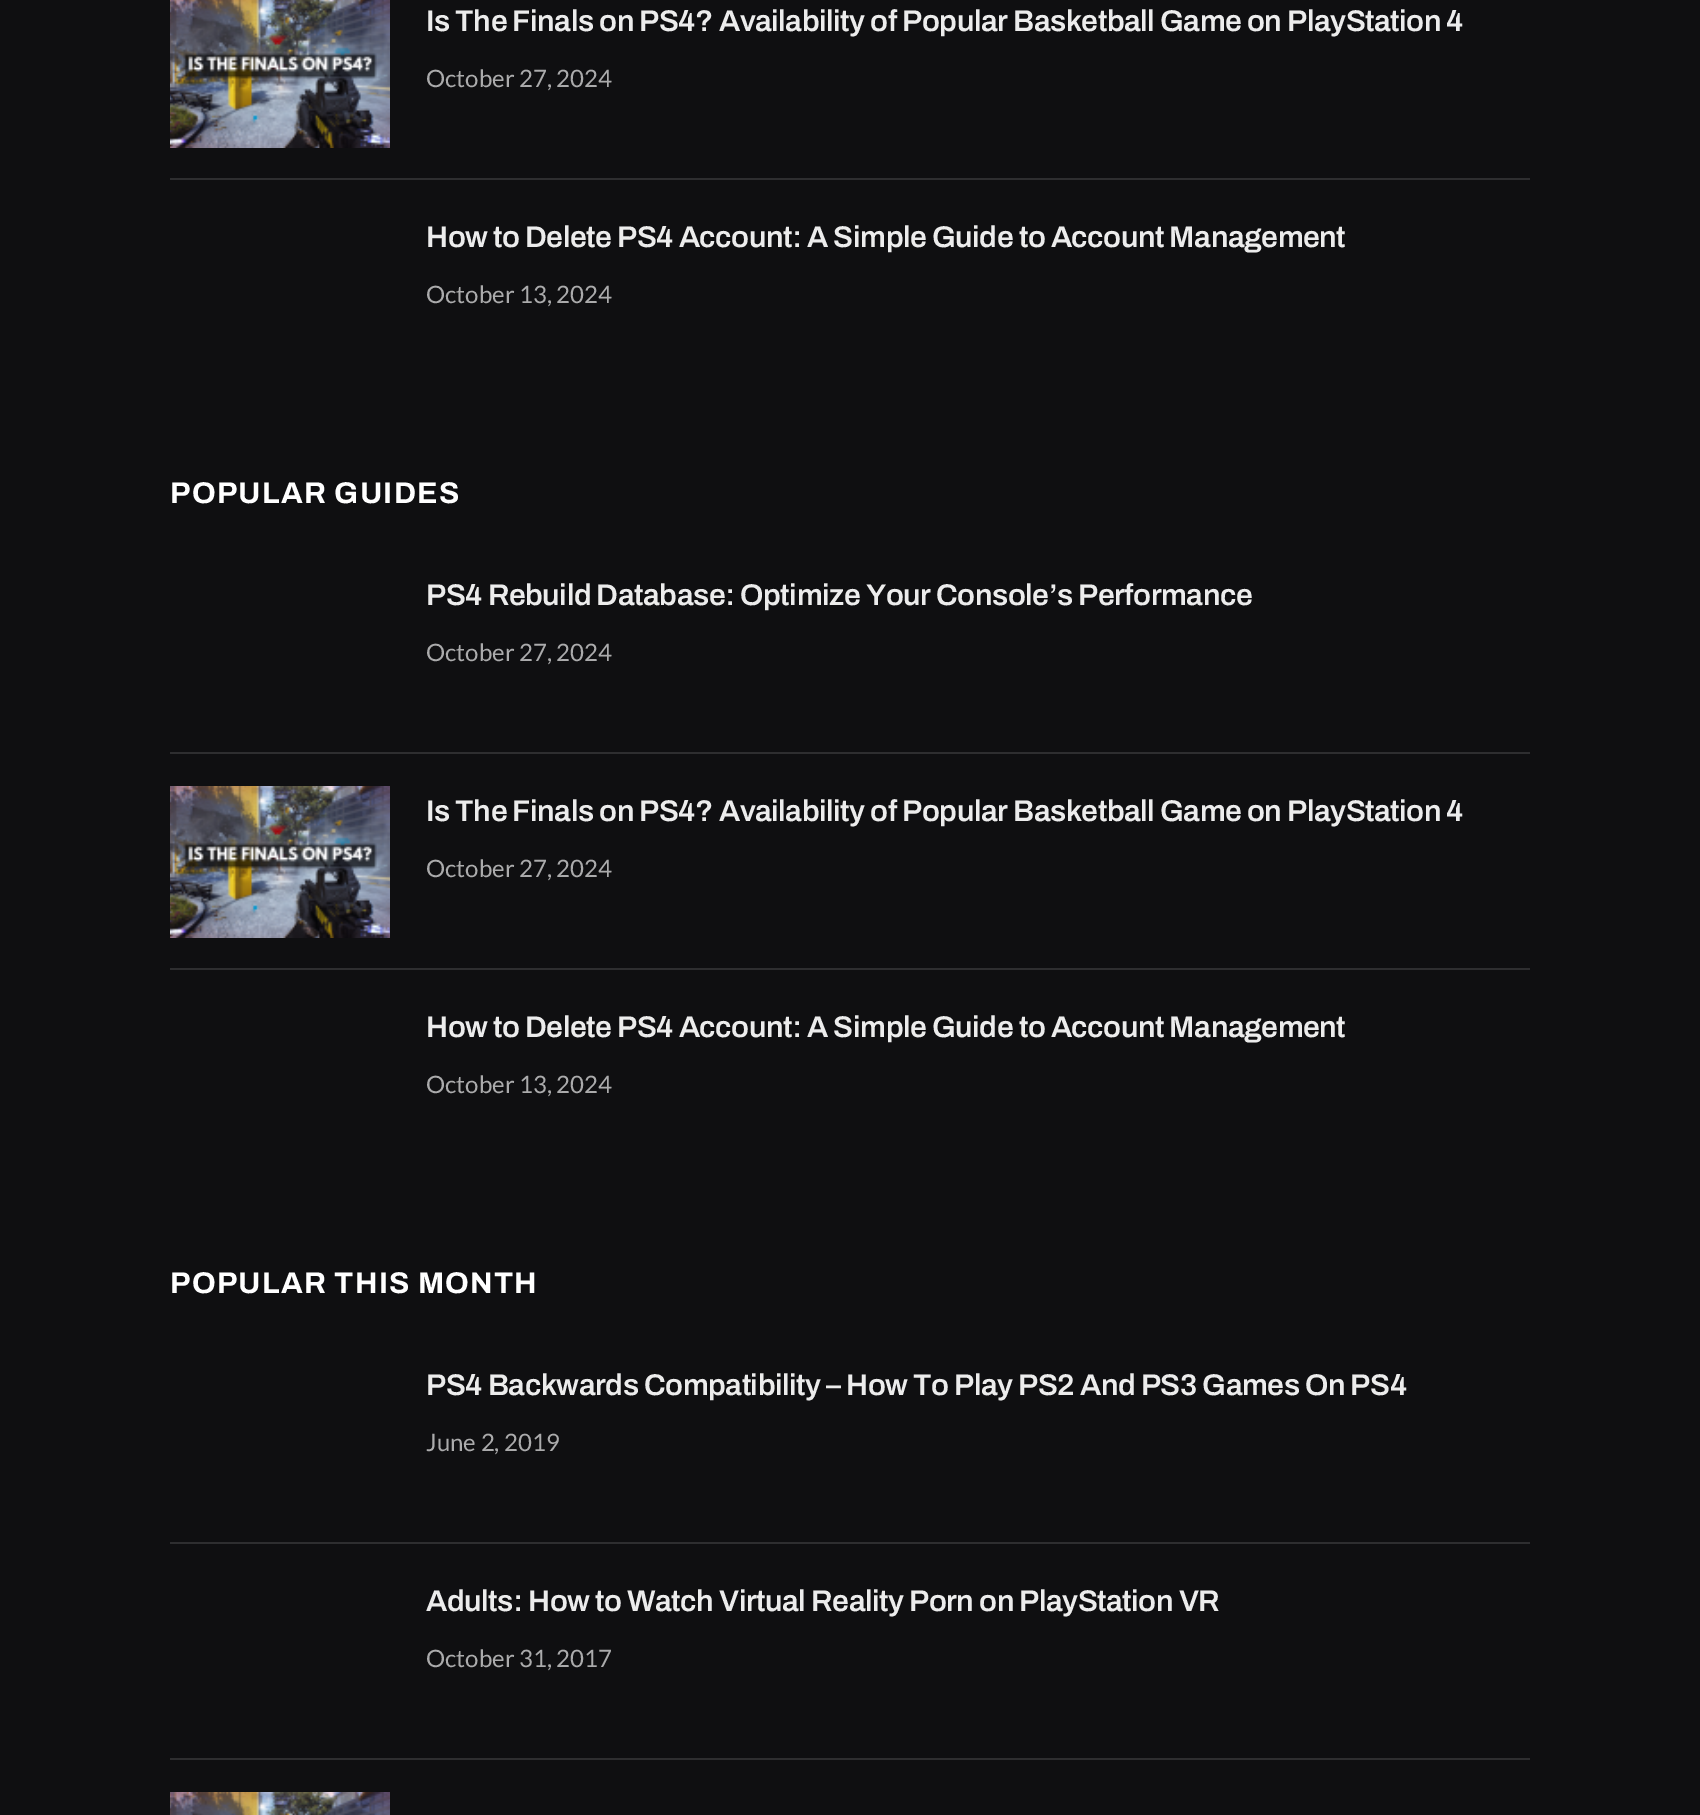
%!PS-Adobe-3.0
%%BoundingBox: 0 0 1700 1815
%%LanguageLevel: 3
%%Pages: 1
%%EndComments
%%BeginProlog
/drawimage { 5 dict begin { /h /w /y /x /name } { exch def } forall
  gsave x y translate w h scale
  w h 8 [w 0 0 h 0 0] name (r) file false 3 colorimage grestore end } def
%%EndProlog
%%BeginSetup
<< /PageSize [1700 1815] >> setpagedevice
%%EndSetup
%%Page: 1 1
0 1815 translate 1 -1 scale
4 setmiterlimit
0.059 0.059 0.067 setrgbcolor
0 0 1700 1815 rectfill
(images/1.raw) 170 0 220 148 drawimage
0.18 0.18 0.188 setrgbcolor
170 178 1360 2 rectfill
170 752 1360 2 rectfill
(images/2.raw) 170 786 220 152 drawimage
170 968 1360 2 rectfill
170 1542 1360 2 rectfill
170 1758 1360 2 rectfill
(images/3.raw) 170 1792 220 23 drawimage
/Archivo-SemiBold [30 0 0 -30 0 0] selectfont
0.925 setgray
426 31 moveto -0.45 0 (Is The Finals on PS4? Availability of Popular Basketball Game on PlayStation 4) ashow
/Lato-Regular [24 0 0 -24 0 0] selectfont
0.671 0.671 0.675 setrgbcolor
426 87 moveto (October 27, 2024) show
/Archivo-SemiBold [30 0 0 -30 0 0] selectfont
0.925 setgray
426 247 moveto -0.45 0 (How to Delete PS4 Account: A Simple Guide to Account Management) ashow
/Lato-Regular [24 0 0 -24 0 0] selectfont
0.671 0.671 0.675 setrgbcolor
426 303 moveto (October 13, 2024) show
/Archivo-Bold [30 0 0 -30 0 0] selectfont
1 setgray
170 503 moveto 1.25 0 (POPULAR GUIDES) ashow
/Archivo-SemiBold [30 0 0 -30 0 0] selectfont
0.925 setgray
426 605 moveto -0.45 0 (PS4 Rebuild Database: Optimize Your Console’s Performance) ashow
/Lato-Regular [24 0 0 -24 0 0] selectfont
0.671 0.671 0.675 setrgbcolor
426 661 moveto (October 27, 2024) show
/Archivo-SemiBold [30 0 0 -30 0 0] selectfont
0.925 setgray
426 821 moveto -0.45 0 (Is The Finals on PS4? Availability of Popular Basketball Game on PlayStation 4) ashow
/Lato-Regular [24 0 0 -24 0 0] selectfont
0.671 0.671 0.675 setrgbcolor
426 877 moveto (October 27, 2024) show
/Archivo-SemiBold [30 0 0 -30 0 0] selectfont
0.925 setgray
426 1037 moveto -0.45 0 (How to Delete PS4 Account: A Simple Guide to Account Management) ashow
/Lato-Regular [24 0 0 -24 0 0] selectfont
0.671 0.671 0.675 setrgbcolor
426 1093 moveto (October 13, 2024) show
/Archivo-Bold [30 0 0 -30 0 0] selectfont
1 setgray
170 1293 moveto 1.25 0 (POPULAR THIS MONTH) ashow
/Archivo-SemiBold [30 0 0 -30 0 0] selectfont
0.925 setgray
426 1395 moveto -0.45 0 (PS4 Backwards Compatibility – How To Play PS2 And PS3 Games On PS4) ashow
/Lato-Regular [24 0 0 -24 0 0] selectfont
0.671 0.671 0.675 setrgbcolor
426 1451 moveto (June 2, 2019) show
/Archivo-SemiBold [30 0 0 -30 0 0] selectfont
0.925 setgray
426 1611 moveto -0.45 0 (Adults: How to Watch Virtual Reality Porn on PlayStation VR) ashow
/Lato-Regular [24 0 0 -24 0 0] selectfont
0.671 0.671 0.675 setrgbcolor
426 1667 moveto (October 31, 2017) show
showpage
%%EOF
